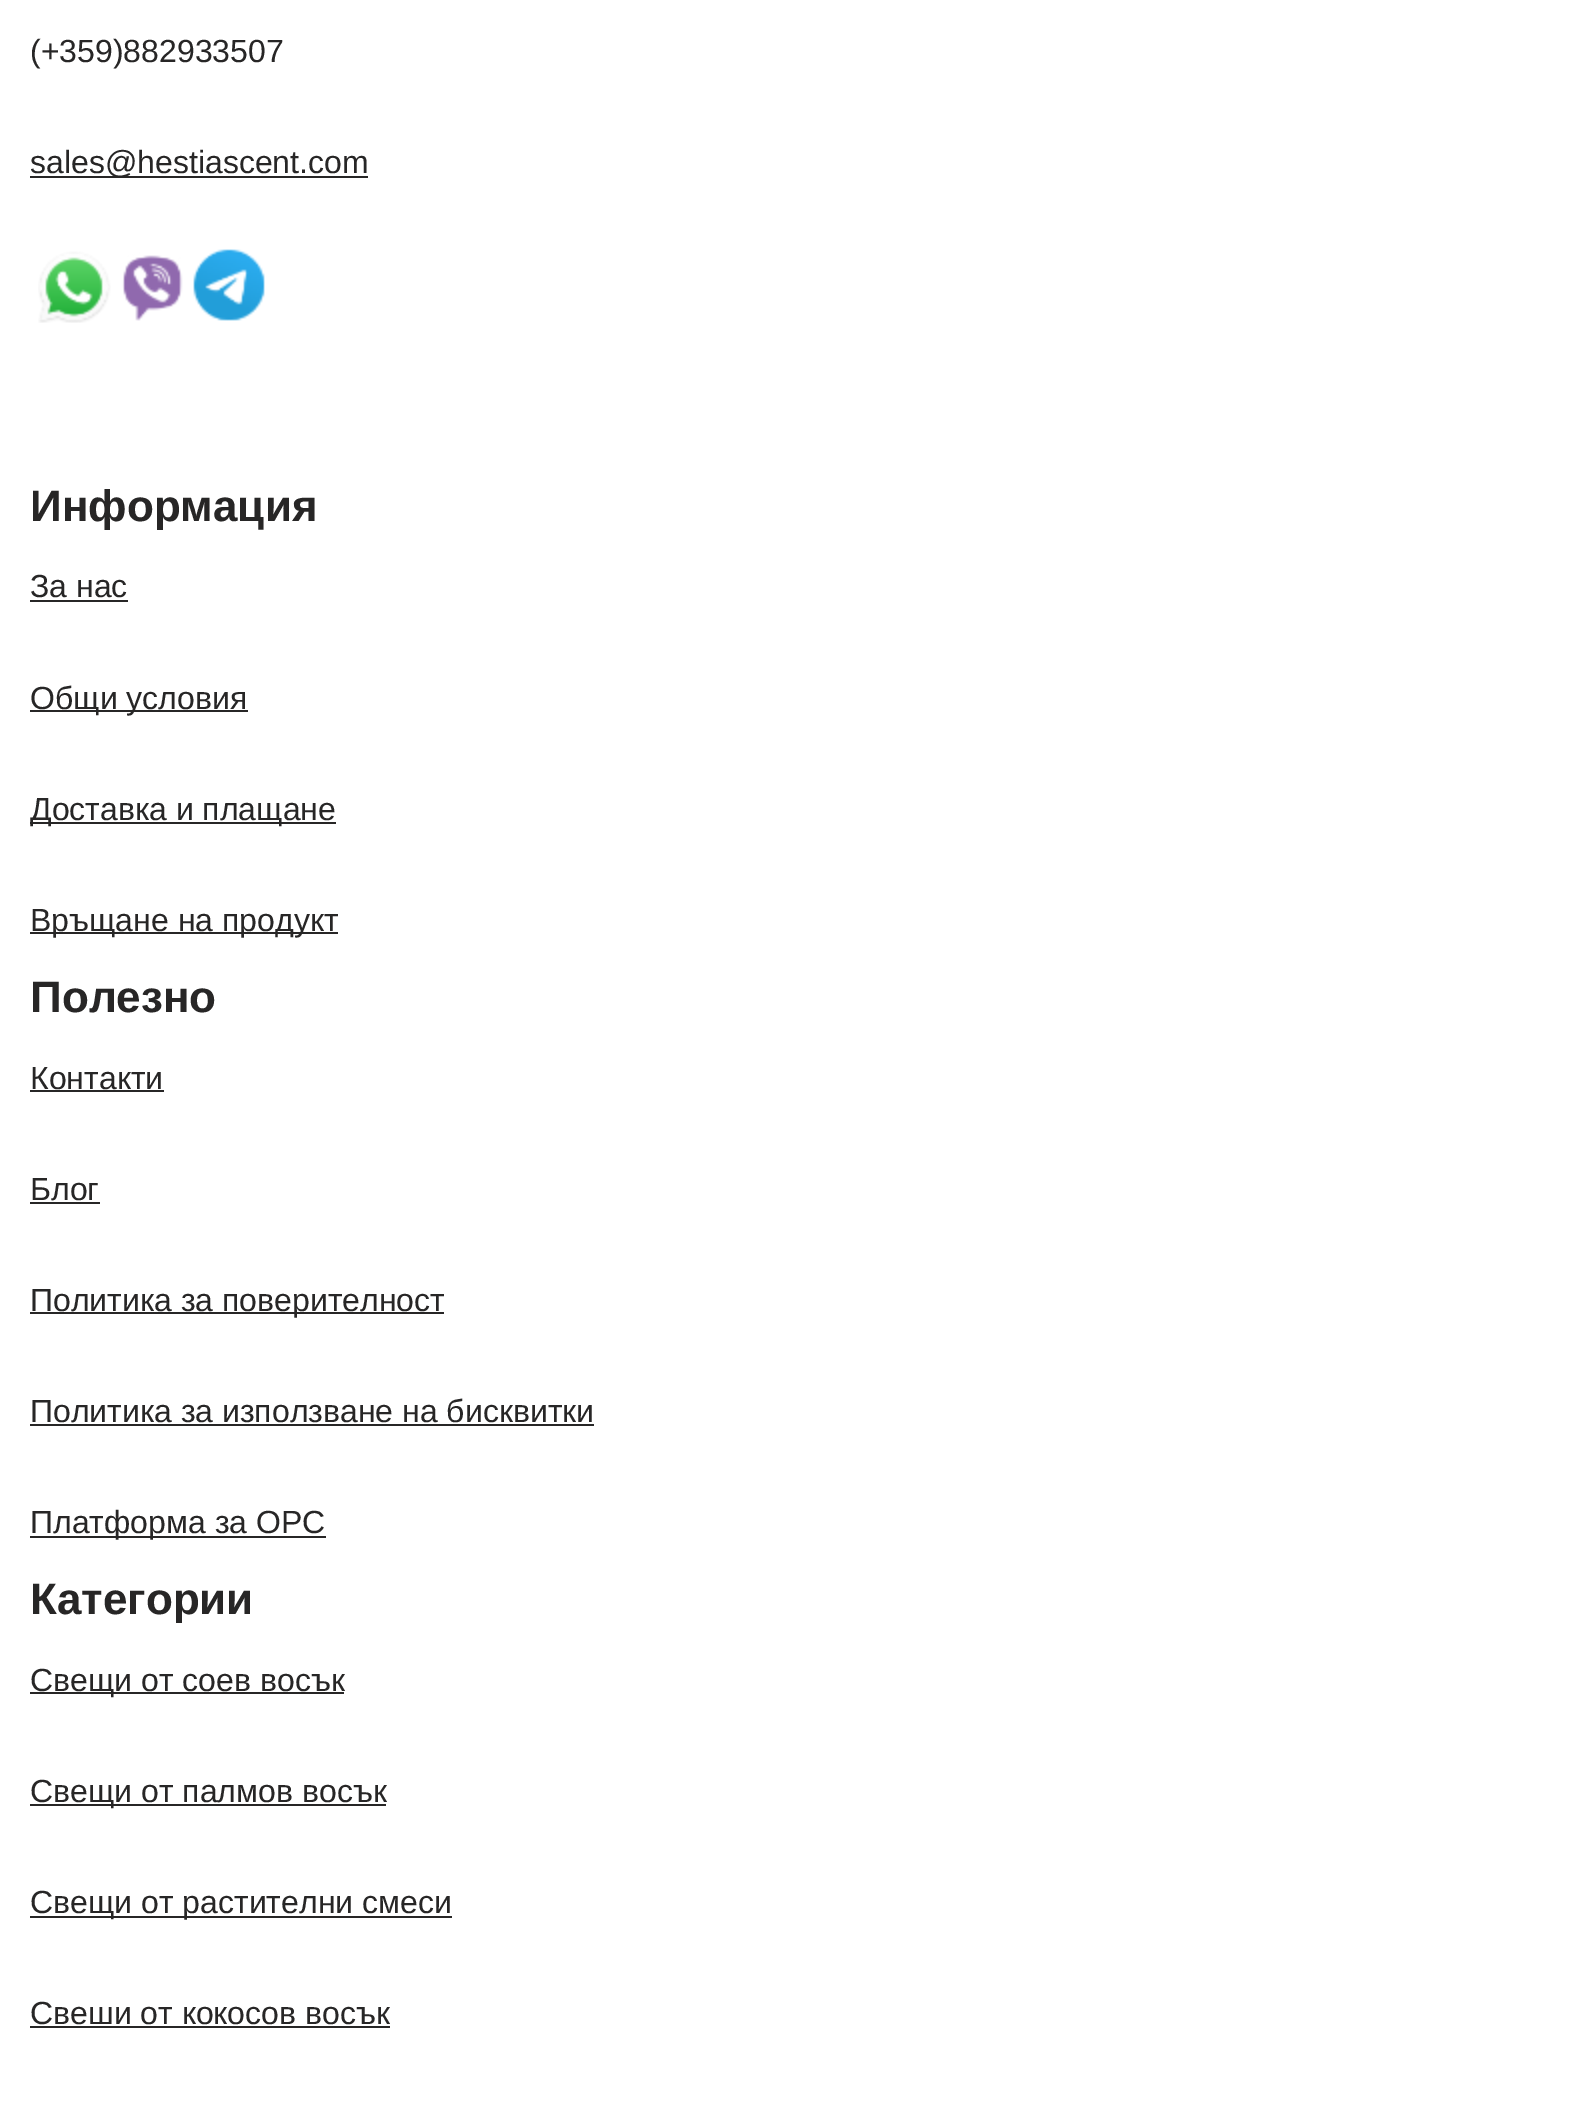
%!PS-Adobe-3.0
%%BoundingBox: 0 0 1584 2110
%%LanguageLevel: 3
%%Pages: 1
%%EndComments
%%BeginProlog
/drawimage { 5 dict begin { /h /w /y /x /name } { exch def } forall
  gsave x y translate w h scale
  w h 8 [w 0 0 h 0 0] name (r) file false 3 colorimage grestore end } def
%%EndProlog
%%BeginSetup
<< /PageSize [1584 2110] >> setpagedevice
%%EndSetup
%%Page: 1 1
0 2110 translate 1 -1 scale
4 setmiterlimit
1 setgray
0 0 1584 2110 rectfill
0.153 0.149 0.149 setrgbcolor
30 176 338 2 rectfill
(images/1.raw) 38 249 227 74 drawimage
30 600 98 2 rectfill
30 710 218 2 rectfill
30 822 306 2 rectfill
30 932 308 2 rectfill
30 1090 134 2 rectfill
30 1202 70 2 rectfill
30 1312 414 2 rectfill
30 1424 564 2 rectfill
30 1536 296 2 rectfill
30 1692 314 2 rectfill
30 1804 356 2 rectfill
30 1916 422 2 rectfill
30 2026 360 2 rectfill
/LiberationSans-Regular [32 0 0 -32 0 0] selectfont
30 62 moveto (\(+359\)882933507) show
30 173 moveto (sales@hestiascent.com) show
/LiberationSans-Bold [44 0 0 -44 0 0] selectfont
30 521 moveto (Информация) show
/LiberationSans-Regular [32 0 0 -32 0 0] selectfont
30 597 moveto (За нас) show
30 709 moveto (Общи условия) show
30 820 moveto (Доставка и плащане) show
30 931 moveto (Връщане на продукт) show
/LiberationSans-Bold [44 0 0 -44 0 0] selectfont
30 1012 moveto (Полезно) show
/LiberationSans-Regular [32 0 0 -32 0 0] selectfont
30 1089 moveto (Контакти) show
30 1200 moveto (Блог) show
30 1311 moveto (Политика за поверителност) show
30 1422 moveto (Политика за използване на бисквитки) show
30 1533 moveto (Платформа за ОРС) show
/LiberationSans-Bold [44 0 0 -44 0 0] selectfont
30 1614 moveto (Категории) show
/LiberationSans-Regular [32 0 0 -32 0 0] selectfont
30 1691 moveto (Свещи от соев восък) show
30 1802 moveto (Свещи от палмов восък) show
30 1913 moveto (Свещи от растителни смеси) show
30 2024 moveto (Свеши от кокосов восък) show
showpage
%%EOF
